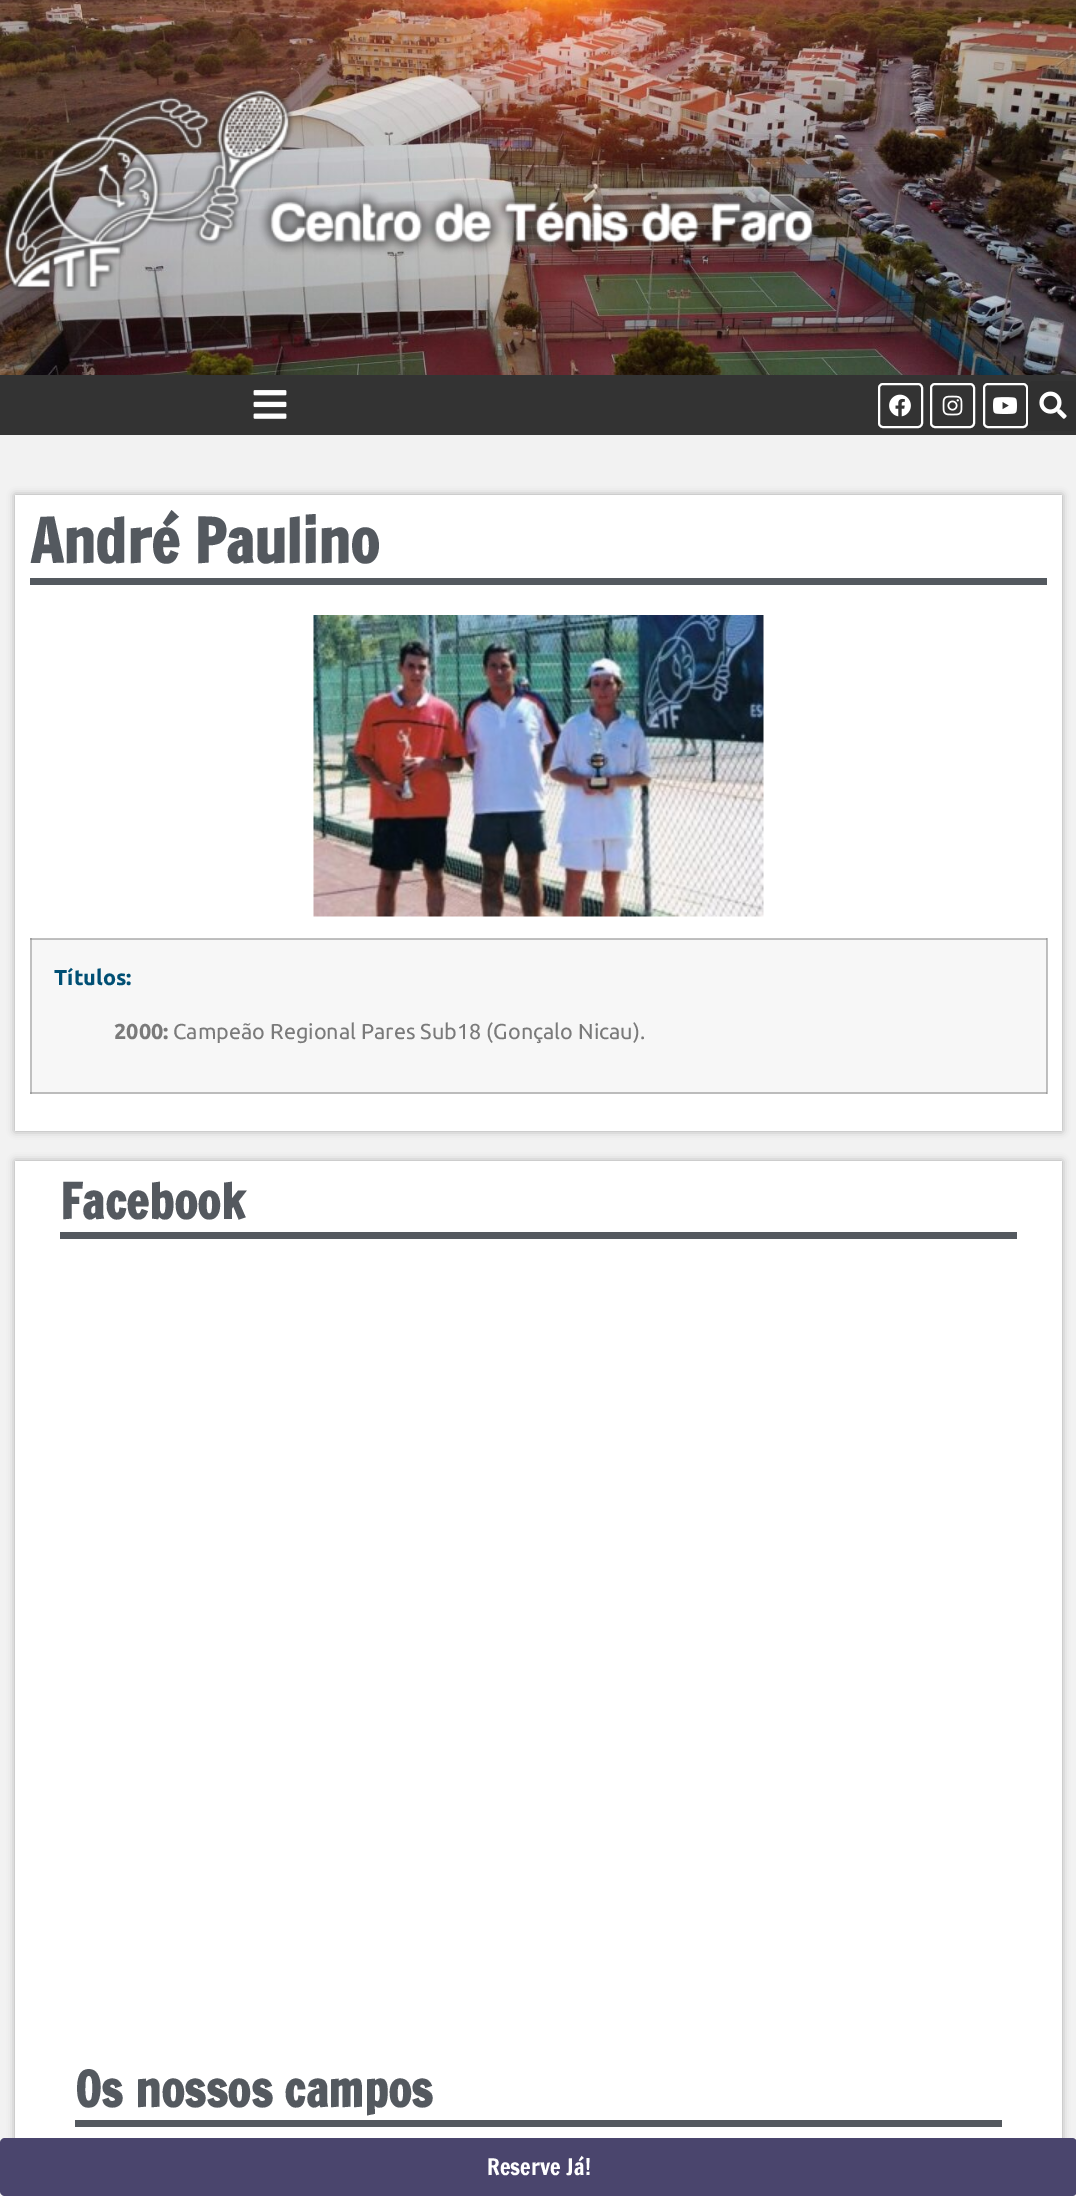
%!PS-Adobe-3.0
%%BoundingBox: 0 0 1076 2196
%%LanguageLevel: 3
%%Pages: 1
%%EndComments
%%BeginProlog
/setalpha { dup .setfillconstantalpha .setstrokeconstantalpha } def
/rrect { 5 dict begin { /r /h /w /y /x } { exch def } forall
  x r add y moveto x w add y 2 copy h add r arct x w add y h add x 1 index r arct
  x y h add x y r arct x y 2 copy exch w add exch r arct closepath end } def
/softshadow { 12 dict begin { /a /b /q /h /w /y /x } { exch def } forall gsave /was 0 def
  9 -2 -9 { dup b mul 4 div /e exch def 1 sub .425 mul 2.718 exch exp 1 add a .99 .min exch div /now exch def
    1 1 now sub 1 was sub div sub setalpha /was now def
    w h .min e 2 mul add 0 gt { x e sub y e sub w e 2 mul add h e 2 mul add
      q e add b .6 mul add w h .min 2 div e add .min 0 .max rrect fill } if } for grestore end } def
/drawimage { 5 dict begin { /h /w /y /x /name } { exch def } forall
  gsave x y translate w h scale
  w h 8 [w 0 0 h 0 0] name (r) file false 3 colorimage grestore end } def
%%EndProlog
%%BeginSetup
<< /PageSize [1076 2196] /PageUsesTransparency true >> setpagedevice
%%EndSetup
%%Page: 1 1
0 .pushpdf14devicefilter
0 2196 translate 1 -1 scale
4 setmiterlimit
0.949 setgray
0 0 1076 2196 rectfill
(images/1.raw) 0 0 1076 375 drawimage
(images/2.raw) 1 86 821 205 drawimage
0.2 setgray
0 375 1076 60 rectfill
(images/3.raw) 253 390 34 29 drawimage
1 setgray
2 setlinewidth
879 384 43 43 4 rrect stroke
(images/4.raw) 889 394 22 23 drawimage
931 384 43 43 4 rrect stroke
(images/5.raw) 942 395 21 21 drawimage
984 384 43 43 4 rrect stroke
(images/6.raw) 993 397 24 17 drawimage
0.188 setgray
1028 381 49 50 5 rrect fill
(images/7.raw) 1039 391 28 28 drawimage
0 setgray
15 495 1047 636 0 4 0.3 softshadow
1 setgray
15 495 1047 636 rectfill
0.753 setgray
30 938 2 156 rectfill
0.627 setgray
30 1092 2 2 rectfill
0.753 setgray
1047 938 1 156 rectfill
30 938 1017 1 rectfill
0.627 setgray
30 938 2 2 rectfill
1046 938 1 2 rectfill
0.329 0.349 0.373 setrgbcolor
30 578 1017 7 rectfill
(images/8.raw) 313 615 451 302 drawimage
0.969 setgray
32 940 1014 152 rectfill
0.737 setgray
32 1092 1015 2 rectfill
1046 939 1 155 rectfill
0.62 setgray
1046 1092 1 2 rectfill
0.737 setgray
32 939 1015 1 rectfill
0.62 setgray
1046 939 1 1 rectfill
0 setgray
15 1161 1047 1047 0 4 0.3 softshadow
1 setgray
15 1161 1047 977 rectfill
0.329 0.349 0.373 setrgbcolor
60 1232 957 7 rectfill
75 2120 927 7 rectfill
0.29 0.271 0.427 setrgbcolor
0 2138 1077 58 5 rrect fill
/FrancoisOne-Bold [60 0 0 -60 0 0] selectfont
0.329 0.349 0.373 setrgbcolor
30 563 moveto (André Paulino) show
/Ubuntu-Bold [21.6 0 0 -21.6 0 0] selectfont
0 0.31 0.455 setrgbcolor
54 985 moveto (Títulos:) show
0.478 setgray
114 1039 moveto (2000:) show
/Ubuntu-Regular [21.6 0 0 -21.6 0 0] selectfont
173 1039 moveto (Campeão Regional Pares Sub18 \(Gonçalo Nicau\).) show
/FrancoisOne-Bold [48 0 0 -48 0 0] selectfont
0.329 0.349 0.373 setrgbcolor
60 1219 moveto (Facebook) show
75 2107 moveto (Os nossos campos) show
/FrancoisOne-Regular [22.5 0 0 -22.5 0 0] selectfont
1 setgray
487 2175 moveto (Reserve Já!) show
.poppdf14devicefilter showpage
%%EOF
